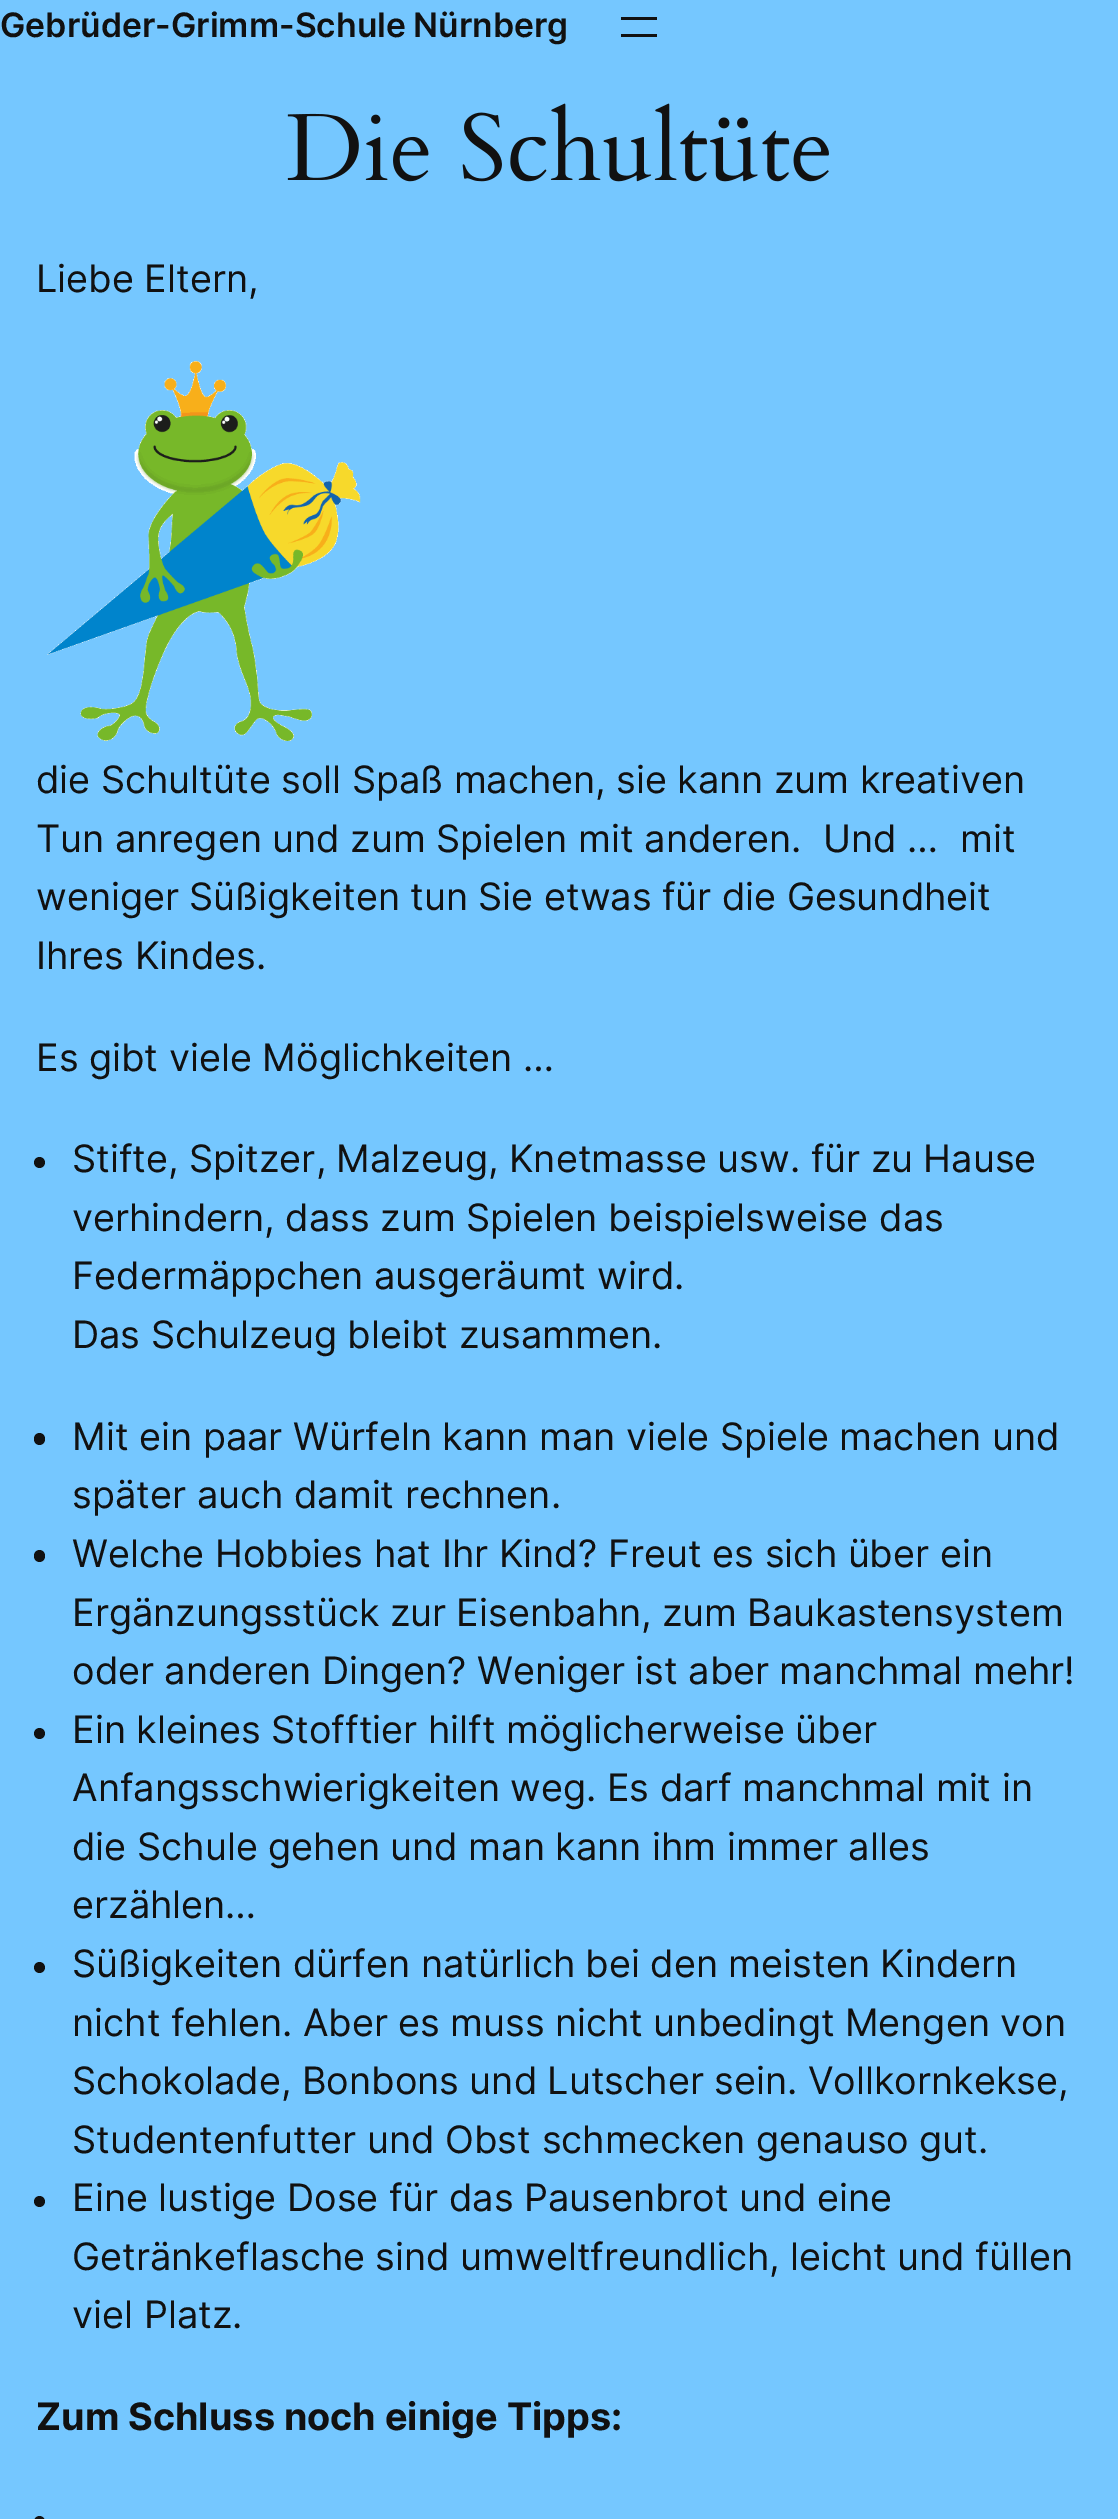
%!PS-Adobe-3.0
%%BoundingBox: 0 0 1118 2519
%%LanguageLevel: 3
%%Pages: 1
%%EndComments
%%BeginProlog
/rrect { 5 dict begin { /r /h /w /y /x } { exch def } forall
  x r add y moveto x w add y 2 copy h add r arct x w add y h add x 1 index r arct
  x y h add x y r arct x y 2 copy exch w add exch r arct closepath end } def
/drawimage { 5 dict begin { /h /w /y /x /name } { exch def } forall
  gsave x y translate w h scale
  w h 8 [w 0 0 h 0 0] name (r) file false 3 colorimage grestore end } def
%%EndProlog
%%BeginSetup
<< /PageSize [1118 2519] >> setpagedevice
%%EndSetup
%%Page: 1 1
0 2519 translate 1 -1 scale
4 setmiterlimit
0.459 0.78 1 setrgbcolor
0 0 1118 2519 rectfill
0.067 setgray
621 17 36 3 rectfill
621 34 36 3 rectfill
(images/1.raw) 287 103 542 79 drawimage
(images/2.raw) 47 361 314 380 drawimage
newpath 39.5 1162.5 5.5 0 360 arc closepath fill
34 1433 11 12 5.5 rrect fill
34 1550 11 12 5.5 rrect fill
newpath 39.5 1733.5 5.5 0 360 arc closepath fill
newpath 39.5 1967.5 5.5 0 360 arc closepath fill
newpath 39.5 2201.5 5.5 0 360 arc closepath fill
34 2516 11 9 5.5 rrect fill
/Inter-SemiBold [33.7 0 0 -33.7 0 0] selectfont
0 37 moveto -1 0 32 (Gebrüder-Grimm-Schule Nürnberg) widthshow
/Inter-Regular [37.8 0 0 -37.8 0 0] selectfont
36 292 moveto (Liebe Eltern,) show
36 793 moveto -0.25 0 32 (die Schultüte soll Spaß machen, sie kann zum kreativen) widthshow
36 852 moveto (Tun anregen und zum Spielen mit anderen.  Und …  mit) show
36 910 moveto -0.25 0 32 (weniger Süßigkeiten tun Sie etwas für die Gesundheit) widthshow
36 969 moveto (Ihres Kindes.) show
36 1071 moveto (Es gibt viele Möglichkeiten …) show
72 1172 moveto -0.25 0 32 (Stifte, Spitzer, Malzeug, Knetmasse usw. für zu Hause) widthshow
72 1231 moveto (verhindern, dass zum Spielen beispielsweise das) show
72 1289 moveto (Federmäppchen ausgeräumt wird.) show
72 1348 moveto (Das Schulzeug bleibt zusammen.) show
72 1450 moveto (Mit ein paar Würfeln kann man viele Spiele machen und) show
72 1508 moveto (später auch damit rechnen.) show
72 1567 moveto (Welche Hobbies hat Ihr Kind? Freut es sich über ein) show
72 1626 moveto -0.5 0 32 (Ergänzungsstück zur Eisenbahn, zum Baukastensystem) widthshow
72 1684 moveto -0.25 0 32 (oder anderen Dingen? Weniger ist aber manchmal mehr!) widthshow
72 1743 moveto -0.25 0 32 (Ein kleines Stofftier hilft möglicherweise über) widthshow
72 1801 moveto -0.25 0 32 (Anfangsschwierigkeiten weg. Es darf manchmal mit in) widthshow
72 1860 moveto (die Schule gehen und man kann ihm immer alles) show
72 1918 moveto (erzählen…) show
72 1977 moveto -0.25 0 32 (Süßigkeiten dürfen natürlich bei den meisten Kindern) widthshow
72 2036 moveto -0.25 0 32 (nicht fehlen. Aber es muss nicht unbedingt Mengen von) widthshow
72 2094 moveto -0.25 0 32 (Schokolade, Bonbons und Lutscher sein. Vollkornkekse,) widthshow
72 2153 moveto (Studentenfutter und Obst schmecken genauso gut.) show
72 2211 moveto -0.25 0 32 (Eine lustige Dose für das Pausenbrot und eine) widthshow
72 2270 moveto -0.25 0 32 (Getränkeflasche sind umweltfreundlich, leicht und füllen) widthshow
72 2328 moveto (viel Platz.) show
/Inter-Bold [37.8 0 0 -37.8 0 0] selectfont
36 2430 moveto (Zum Schluss noch einige Tipps:) show
showpage
%%EOF
